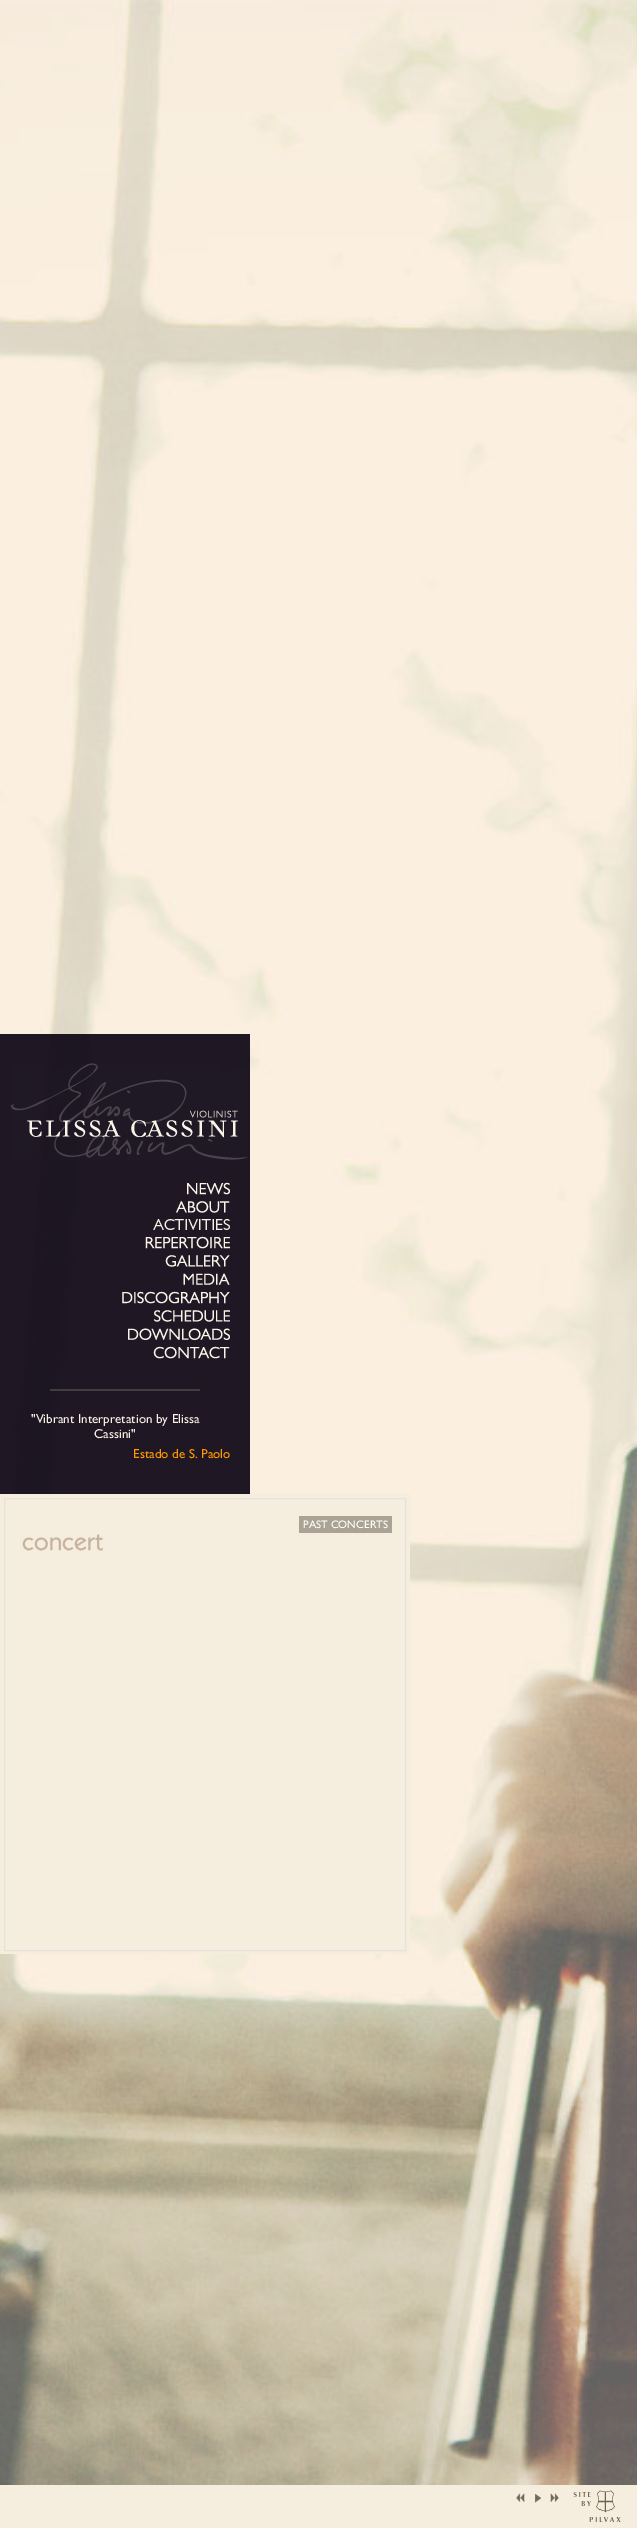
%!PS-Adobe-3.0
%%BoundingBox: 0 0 637 2528
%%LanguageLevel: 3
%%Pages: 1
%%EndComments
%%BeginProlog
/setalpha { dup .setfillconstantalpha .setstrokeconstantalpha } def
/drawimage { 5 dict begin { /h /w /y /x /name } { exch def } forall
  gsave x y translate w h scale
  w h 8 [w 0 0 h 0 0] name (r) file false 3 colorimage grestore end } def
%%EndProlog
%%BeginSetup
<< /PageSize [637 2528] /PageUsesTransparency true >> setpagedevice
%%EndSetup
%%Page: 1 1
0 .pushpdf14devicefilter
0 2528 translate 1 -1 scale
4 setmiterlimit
1 setgray
0 0 637 2528 rectfill
(images/1.raw) 0 0 637 2485 drawimage
0.9 setalpha
0.027 0 0.063 setrgbcolor
0 1034 250 460 rectfill
1 setalpha
(images/2.raw) 10 1063 238 97 drawimage
(images/3.raw) 187 1182 43 13 drawimage
(images/4.raw) 176 1201 54 12 drawimage
(images/5.raw) 153 1219 77 11 drawimage
(images/6.raw) 145 1236 85 13 drawimage
(images/7.raw) 165 1255 65 12 drawimage
(images/8.raw) 183 1273 47 12 drawimage
(images/9.raw) 122 1291 108 13 drawimage
(images/10.raw) 154 1310 76 12 drawimage
(images/11.raw) 128 1328 102 12 drawimage
(images/12.raw) 153 1346 77 13 drawimage
0.251 0.247 0.247 setrgbcolor
50 1389 150 2 rectfill
0.961 0.929 0.871 setrgbcolor
0 1494 410 460 rectfill
0.898 0.886 0.863 setrgbcolor
4.5 1498.5 401 452 rectstroke
0.667 0.635 0.576 setrgbcolor
299 1516 93 17 rectfill
0.961 0.929 0.871 setrgbcolor
0 2485 637 43 rectfill
(images/13.raw) 516 2493 9 9 drawimage
(images/14.raw) 535 2494 6 9 drawimage
(images/15.raw) 550 2493 9 9 drawimage
(images/16.raw) 573 2490 48 32 drawimage
/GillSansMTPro-Medium [13 0 0 -13 0 0] selectfont
0.965 0.937 0.89 setrgbcolor
31 1423 moveto ("Vibrant Interpretation by Elissa) show
94 1438 moveto (Cassini") show
1 0.6 0.004 setrgbcolor
133 1458 moveto (Estado de S. Paolo) show
/GillSansMTPro-Medium [11 0 0 -11 0 0] selectfont
1 setgray
303 1528 moveto (PAST CONCERTS) show
/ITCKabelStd-Medium [24 0 0 -24 0 0] selectfont
0.784 0.702 0.616 setrgbcolor
22 1550 moveto (concert) show
.poppdf14devicefilter showpage
%%EOF
